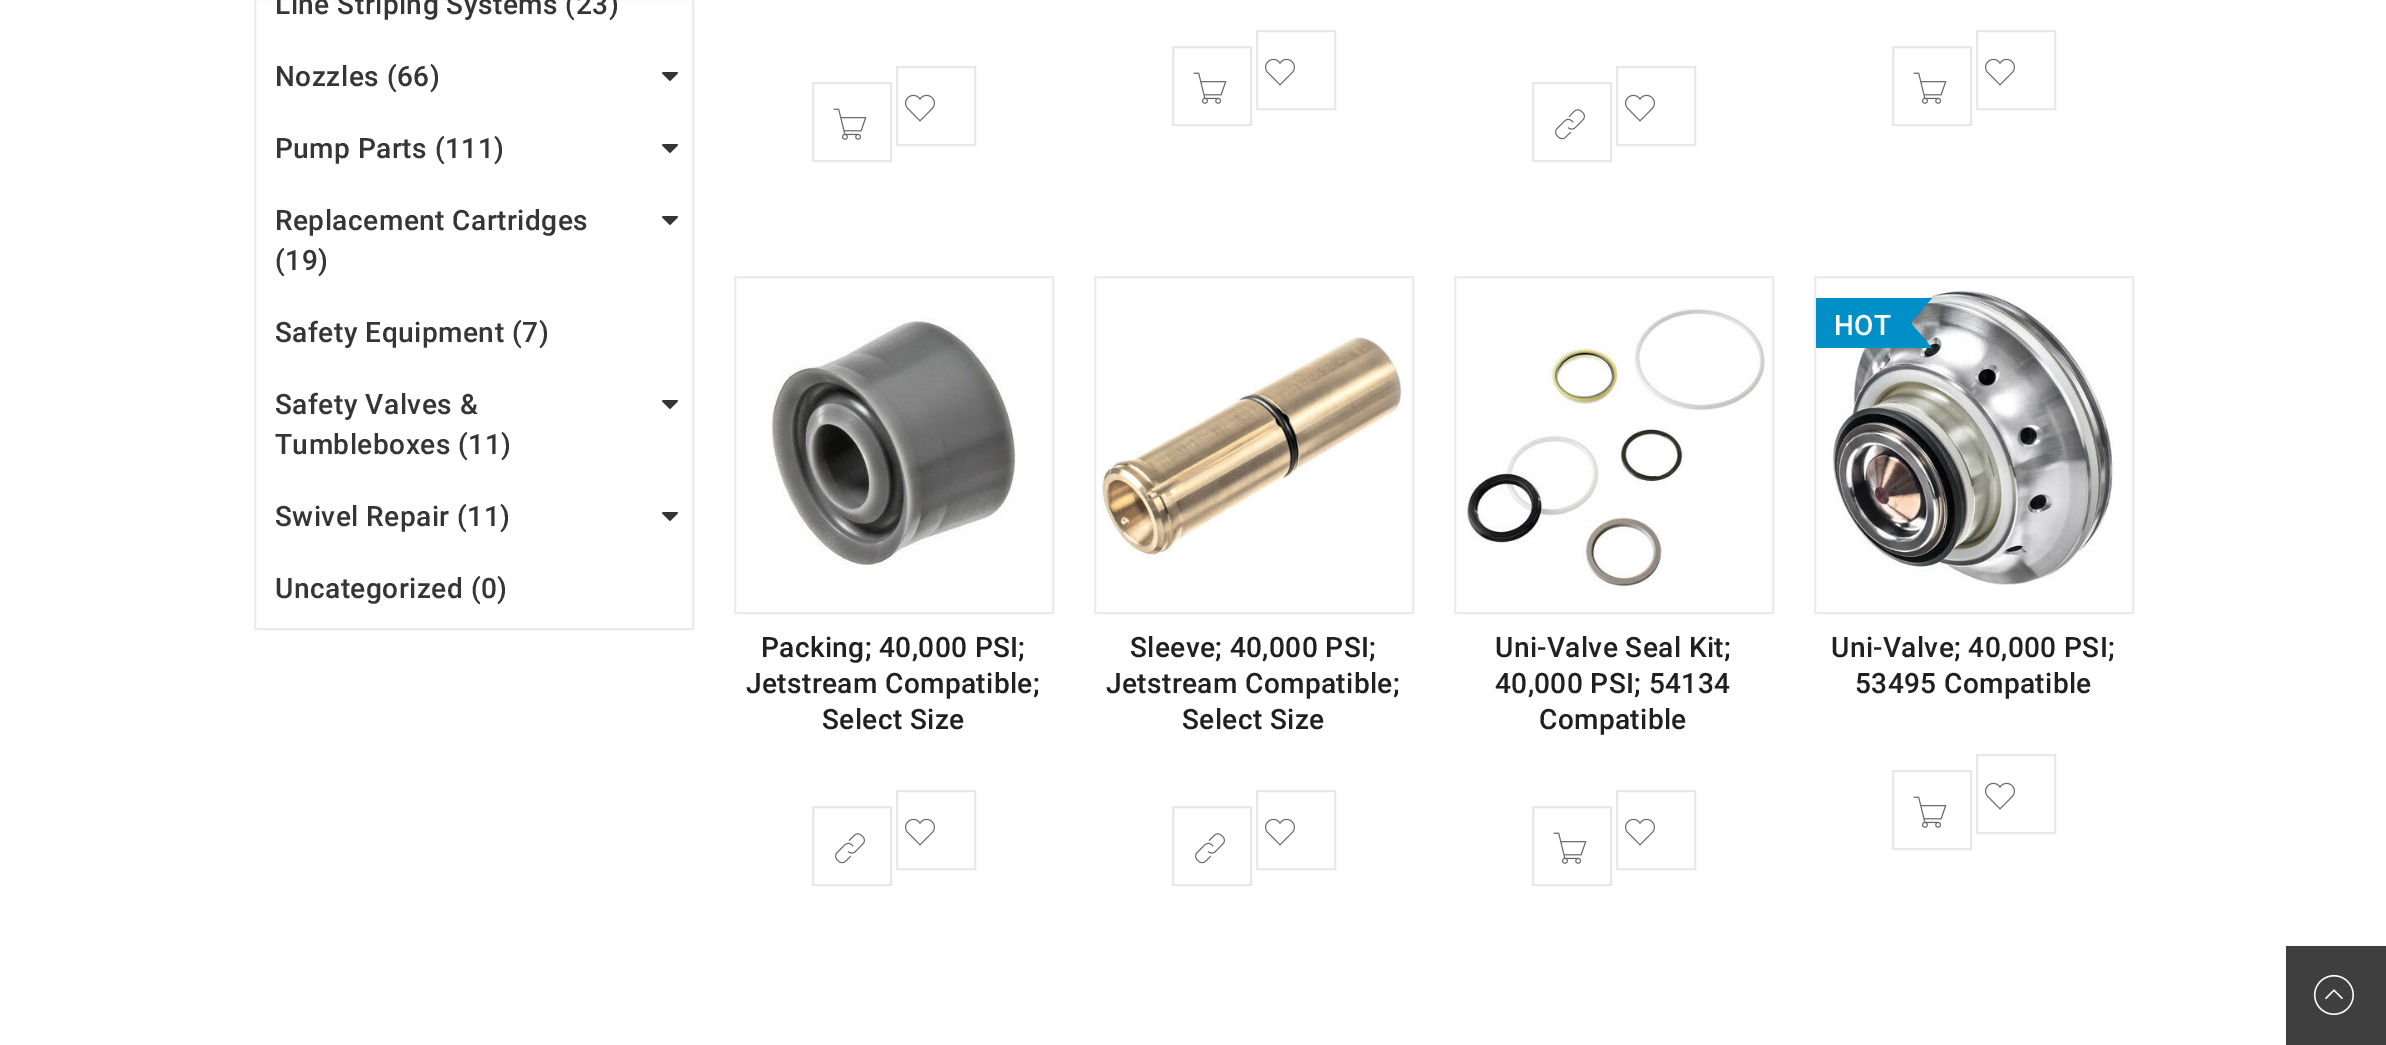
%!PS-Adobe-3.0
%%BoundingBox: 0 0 2386 1045
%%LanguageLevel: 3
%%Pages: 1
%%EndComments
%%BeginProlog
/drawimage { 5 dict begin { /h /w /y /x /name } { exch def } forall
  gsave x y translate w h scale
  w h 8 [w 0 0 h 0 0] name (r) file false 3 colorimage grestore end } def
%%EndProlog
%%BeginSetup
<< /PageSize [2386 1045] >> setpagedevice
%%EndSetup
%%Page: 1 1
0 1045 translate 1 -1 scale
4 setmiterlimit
1 setgray
0 0 2386 1045 rectfill
0.922 setgray
2 setlinewidth
255 -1 438 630 rectstroke
(images/1.raw) 662 72 16 9 drawimage
(images/1.raw) 662 144 16 9 drawimage
(images/1.raw) 662 216 16 9 drawimage
(images/1.raw) 662 400 16 9 drawimage
(images/1.raw) 662 512 16 9 drawimage
0.91 setgray
813 83 78 78 rectstroke
(images/2.raw) 833 108 34 32 drawimage
897 67 78 78 rectstroke
(images/3.raw) 905 94 30 28 drawimage
1173 47 78 78 rectstroke
(images/2.raw) 1193 72 34 32 drawimage
1257 31 78 78 rectstroke
(images/3.raw) 1265 58 30 28 drawimage
1533 83 78 78 rectstroke
(images/4.raw) 1555 109 30 31 drawimage
1617 67 78 78 rectstroke
(images/3.raw) 1625 94 30 28 drawimage
1893 47 78 78 rectstroke
(images/2.raw) 1913 72 34 32 drawimage
1977 31 78 78 rectstroke
(images/3.raw) 1985 58 30 28 drawimage
0.922 setgray
735 277 318 336 rectstroke
(images/5.raw) 769 318 247 254 drawimage
0.91 setgray
813 807 78 78 rectstroke
(images/4.raw) 835 833 30 31 drawimage
897 791 78 78 rectstroke
(images/3.raw) 905 818 30 28 drawimage
0.922 setgray
1095 277 318 336 rectstroke
(images/6.raw) 1101 337 301 222 drawimage
0.91 setgray
1173 807 78 78 rectstroke
(images/4.raw) 1195 833 30 31 drawimage
1257 791 78 78 rectstroke
(images/3.raw) 1265 818 30 28 drawimage
0.922 setgray
1455 277 318 336 rectstroke
(images/7.raw) 1463 308 305 281 drawimage
0.91 setgray
1533 807 78 78 rectstroke
(images/2.raw) 1553 832 34 32 drawimage
1617 791 78 78 rectstroke
(images/3.raw) 1625 818 30 28 drawimage
0.922 setgray
1815 277 318 336 rectstroke
(images/8.raw) 1830 290 285 295 drawimage
0 0.565 0.78 setrgbcolor
1816 298 96 50 rectfill
newpath 1910 298 moveto 1932 298 lineto 1910 324 lineto closepath fill
newpath 1932 348 moveto 1910 348 lineto 1910 322 lineto closepath fill
0.91 setgray
1893 771 78 78 rectstroke
(images/2.raw) 1913 796 34 32 drawimage
1977 755 78 78 rectstroke
(images/3.raw) 1985 782 30 28 drawimage
0.247 setgray
2286 946 100 99 rectfill
(images/9.raw) 2313 974 41 41 drawimage
/Roboto-Medium [28 0 0 -28 0 0] selectfont
0.208 setgray
275 14 moveto 0.5 0 (Line Striping Systems \(23\)) ashow
275 86 moveto 0.5 0 (Nozzles \(66\)) ashow
275 158 moveto 0.5 0 (Pump Parts \(111\)) ashow
275 230 moveto 0.5 0 (Replacement Cartridges) ashow
275 270 moveto 0.5 0 (\(19\)) ashow
275 342 moveto 0.5 0 (Safety Equipment \(7\)) ashow
275 414 moveto 0.5 0 (Safety Valves &) ashow
275 454 moveto 0.5 0 (Tumbleboxes \(11\)) ashow
275 526 moveto 0.5 0 (Swivel Repair \(11\)) ashow
275 598 moveto 0.5 0 (Uncategorized \(0\)) ashow
0.125 setgray
761 657 moveto 0.4 0 (Packing; 40,000 PSI;) ashow
746 693 moveto 0.4 0 (Jetstream Compatible;) ashow
822 729 moveto 0.4 0 (Select Size) ashow
1130 657 moveto 0.4 0 (Sleeve; 40,000 PSI;) ashow
1106 693 moveto 0.4 0 (Jetstream Compatible;) ashow
1182 729 moveto 0.4 0 (Select Size) ashow
1495 657 moveto 0.4 0 (Uni-Valve Seal Kit;) ashow
1495 693 moveto 0.4 0 (40,000 PSI; 54134) ashow
1539 729 moveto 0.4 0 (Compatible) ashow
1 setgray
1834 335 moveto 0.5 0 (HOT) ashow
0.125 setgray
1831 657 moveto 0.4 0 (Uni-Valve; 40,000 PSI;) ashow
1855 693 moveto 0.4 0 (53495 Compatible) ashow
showpage
%%EOF
